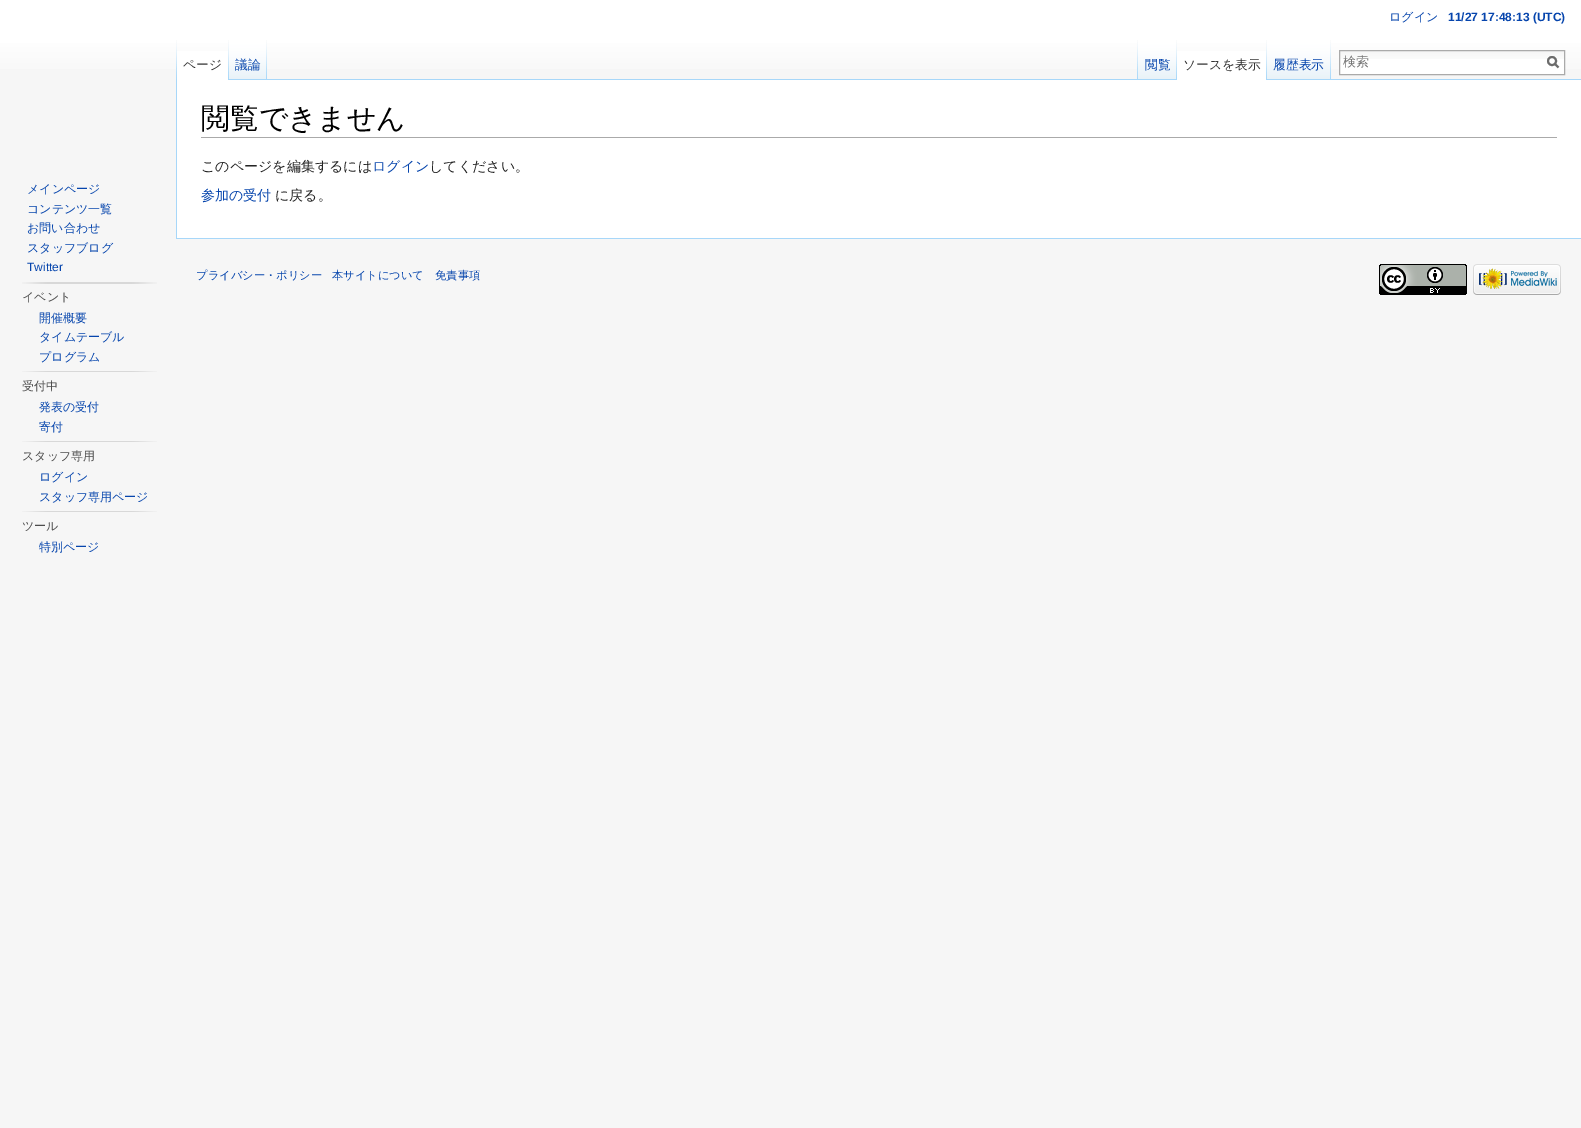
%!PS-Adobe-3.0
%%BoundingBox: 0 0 1581 1128
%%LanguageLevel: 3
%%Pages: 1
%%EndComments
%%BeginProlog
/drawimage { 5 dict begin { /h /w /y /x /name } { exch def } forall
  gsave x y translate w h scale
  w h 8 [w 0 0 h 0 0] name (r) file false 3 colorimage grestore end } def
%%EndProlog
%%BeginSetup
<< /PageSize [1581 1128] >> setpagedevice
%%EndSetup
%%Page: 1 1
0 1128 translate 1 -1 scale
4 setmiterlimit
0.965 setgray
0 0 1581 1128 rectfill
gsave newpath 0 0 moveto 1581 0 lineto 1581 69 lineto 0 69 lineto closepath clip newpath
<< /ShadingType 2 /ColorSpace /DeviceRGB /Coords [791 0 791 80] /Extend [true true] /Function << /FunctionType 3 /Domain [0 1] /Functions [<< /FunctionType 2 /Domain [0 1] /C0 [1 1 1] /C1 [1 1 1] /N 1 >> << /FunctionType 2 /Domain [0 1] /C0 [1 1 1] /C1 [0.965 0.965 0.965] /N 1 >>] /Bounds [0.5] /Encode [0 1 0 1] >> >> shfill grestore
(images/1.raw) 176 40 1 39 drawimage
1 setgray
177 51 51 29 rectfill
(images/2.raw) 228 40 1 40 drawimage
(images/3.raw) 229 40 38 40 drawimage
(images/4.raw) 266 40 1 39 drawimage
(images/1.raw) 1137 40 1 39 drawimage
0.655 0.843 0.976 setrgbcolor
267 79 1314 1 rectfill
(images/5.raw) 1138 40 39 40 drawimage
(images/4.raw) 1176 40 1 39 drawimage
1 setgray
1177 51 89 29 rectfill
(images/2.raw) 1266 40 1 40 drawimage
(images/6.raw) 1267 40 64 40 drawimage
(images/4.raw) 1330 40 1 39 drawimage
1340 59 224 15 rectfill
(images/7.raw) 1340 51 224 8 drawimage
0.667 setgray
1339.5 50.5 225 24 rectstroke
0.424 setgray
2 setlinewidth
newpath 1558.5 67.5 moveto 1554.5 63.5 lineto stroke
newpath 1552 61 4 0 360 arc closepath stroke
(images/8.raw) 22 282 135 2 drawimage
(images/9.raw) 22 371 135 1 drawimage
(images/9.raw) 22 441 135 1 drawimage
(images/9.raw) 22 511 135 1 drawimage
1 setgray
177 80 1404 158 rectfill
0.655 0.843 0.976 setrgbcolor
176 238 1405 1 rectfill
176 79 1 160 rectfill
0.667 setgray
201 137 1356 1 rectfill
(images/10.raw) 1379 264 88 31 drawimage
(images/11.raw) 1473 264 88 31 drawimage
/WenQuanYiZenHei-Medium [12 0 0 -12 0 0] selectfont
0.024 0.271 0.678 setrgbcolor
1389 21 moveto (ログイン) show
/LiberationSans-Bold [12 0 0 -12 0 0] selectfont
1448 21 moveto (11/27 17:48:13 \(UTC\)) show
/WenQuanYiZenHei-Medium [12.75 0 0 -12.75 0 0] selectfont
0.2 setgray
183 69 moveto (ページ) show
0.024 0.271 0.678 setrgbcolor
235 69 moveto (議論) show
1145 69 moveto (閲覧) show
0.2 setgray
1183 69 moveto (ソースを表示) show
0.024 0.271 0.678 setrgbcolor
1273 69 moveto (履歴表示) show
/WenQuanYiZenHei-Medium [13 0 0 -13 0 0] selectfont
0.459 setgray
1343 66 moveto (検索) show
/WenQuanYiZenHei-Medium [12 0 0 -12 0 0] selectfont
0.024 0.271 0.678 setrgbcolor
27 193 moveto (メインページ) show
27 213 moveto (コンテンツ一覧) show
27 232 moveto (お問い合わせ) show
27 252 moveto (スタッフブログ) show
/LiberationSans-Regular [12 0 0 -12 0 0] selectfont
27 271 moveto (Twitter) show
/WenQuanYiZenHei-Medium [12 0 0 -12 0 0] selectfont
0.302 setgray
22 301 moveto (イベント) show
0.024 0.271 0.678 setrgbcolor
39 322 moveto (開催概要) show
39 341 moveto (タイムテーブル) show
39 361 moveto (プログラム) show
0.302 setgray
22 390 moveto (受付中) show
0.024 0.271 0.678 setrgbcolor
39 411 moveto (発表の受付) show
39 431 moveto (寄付) show
0.302 setgray
22 460 moveto (スタッフ専用) show
0.024 0.271 0.678 setrgbcolor
39 481 moveto (ログイン) show
39 501 moveto (スタッフ専用ページ) show
0.302 setgray
22 530 moveto (ツール) show
0.024 0.271 0.678 setrgbcolor
39 551 moveto (特別ページ) show
/WenQuanYiZenHei-Medium [28.75 0 0 -28.75 0 0] selectfont
0 setgray
201 128 moveto (閲覧できません) show
/WenQuanYiZenHei-Medium [14 0 0 -14 0 0] selectfont
0.145 setgray
201 171 moveto (このページを編集するには) show
0.024 0.271 0.678 setrgbcolor
372 171 moveto (ログイン) show
0.145 setgray
429 171 moveto (してください。) show
0.024 0.271 0.678 setrgbcolor
201 200 moveto (参加の受付) show
0.145 setgray
275 200 moveto (に戻る。) show
/WenQuanYiZenHei-Medium [11.25 0 0 -11.25 0 0] selectfont
0.024 0.271 0.678 setrgbcolor
196 279 moveto (プライバシー・ポリシー) show
332 279 moveto (本サイトについて) show
435 279 moveto (免責事項) show
showpage
%%EOF
